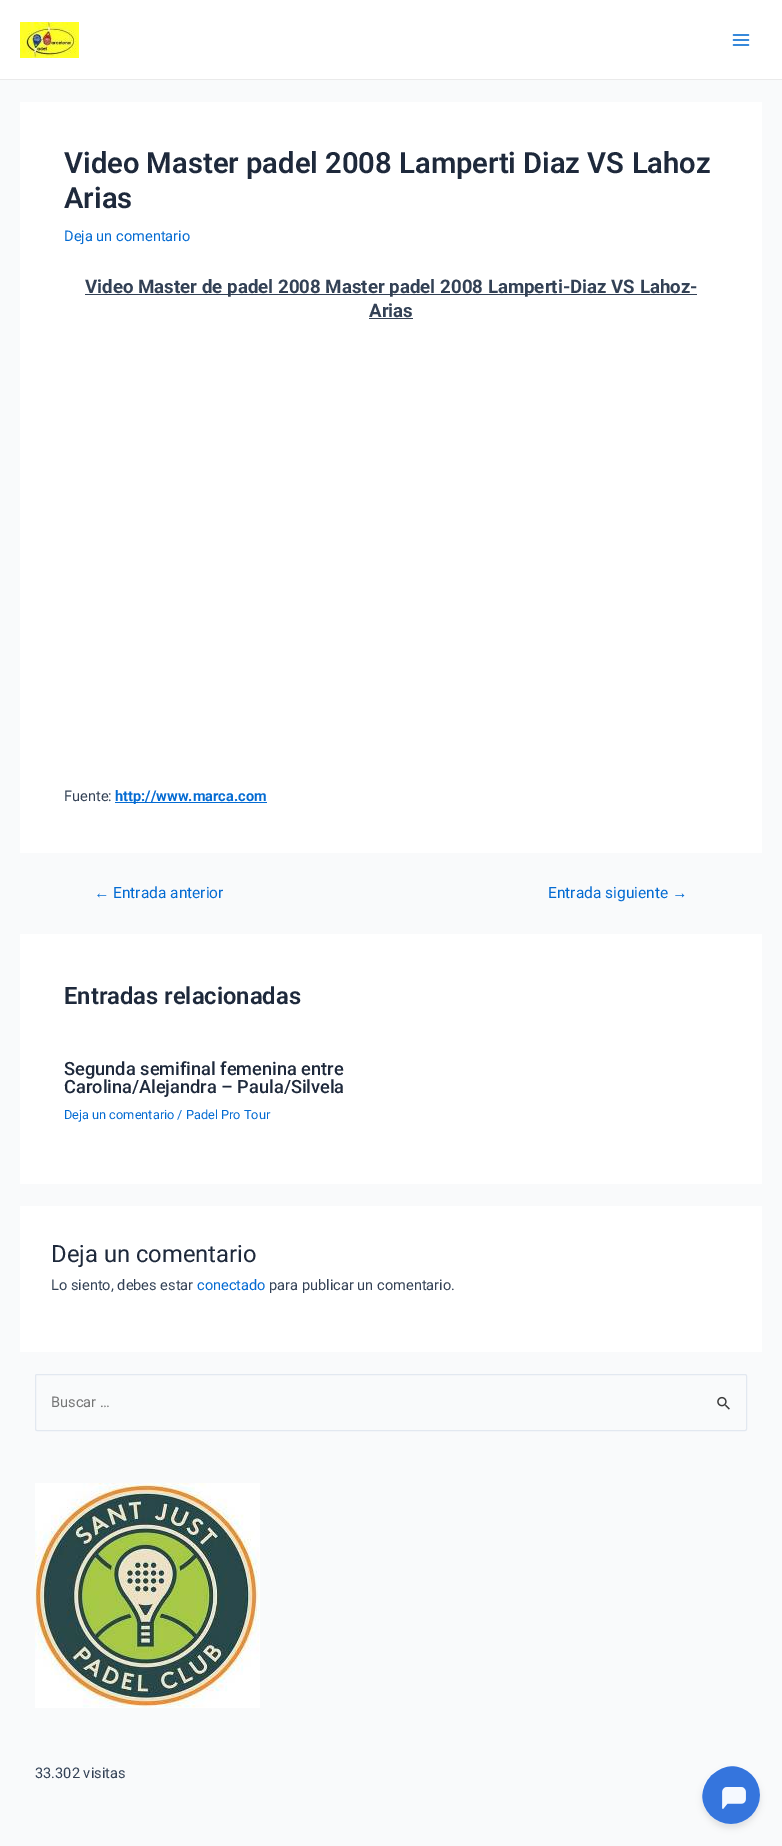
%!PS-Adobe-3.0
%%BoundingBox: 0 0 782 1846
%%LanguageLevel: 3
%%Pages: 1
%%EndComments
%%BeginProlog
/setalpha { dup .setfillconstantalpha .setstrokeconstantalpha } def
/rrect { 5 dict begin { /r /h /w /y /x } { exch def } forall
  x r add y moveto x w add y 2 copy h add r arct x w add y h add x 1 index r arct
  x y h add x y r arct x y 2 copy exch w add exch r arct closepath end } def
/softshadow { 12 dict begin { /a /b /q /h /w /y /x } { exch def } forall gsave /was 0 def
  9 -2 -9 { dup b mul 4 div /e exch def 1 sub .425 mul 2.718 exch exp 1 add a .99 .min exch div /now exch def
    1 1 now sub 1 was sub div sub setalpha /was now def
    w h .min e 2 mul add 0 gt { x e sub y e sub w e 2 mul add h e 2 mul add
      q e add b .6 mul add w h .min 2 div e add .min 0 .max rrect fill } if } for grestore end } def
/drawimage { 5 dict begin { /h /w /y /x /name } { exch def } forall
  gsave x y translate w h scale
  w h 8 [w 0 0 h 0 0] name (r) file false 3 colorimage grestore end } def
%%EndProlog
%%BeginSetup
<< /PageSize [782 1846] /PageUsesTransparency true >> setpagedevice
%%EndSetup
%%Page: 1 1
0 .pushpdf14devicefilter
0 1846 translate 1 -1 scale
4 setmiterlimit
0.976 0.98 0.984 setrgbcolor
0 0 782 1846 rectfill
1 setgray
0 0 782 79 rectfill
0.918 setgray
0 79 782 1 rectfill
(images/1.raw) 20 22 59 36 drawimage
(images/2.raw) 732 34 18 12 drawimage
1 setgray
20 102 742 751 rectfill
0.2 0.255 0.333 setrgbcolor
85 294 612 1 rectfill
369 318 44 1 rectfill
0.016 0.42 0.824 setrgbcolor
115 802 152 1 rectfill
1 setgray
20 934 742 250 rectfill
20 1206 742 146 rectfill
0.886 0.91 0.941 setrgbcolor
35.5 1374.5 711 56 1.5 rrect stroke
(images/3.raw) 717 1396 13 14 drawimage
(images/4.raw) 35 1483 225 225 drawimage
0 setgray
702 1770 58 58 29 3 0.1 softshadow
(images/5.raw) 702 1766 58 58 drawimage
/Roboto-SemiBold [29.2 0 0 -29.2 0 0] selectfont
0.118 0.161 0.231 setrgbcolor
64 173 moveto (Video Master padel 2008 Lamperti Diaz VS Lahoz) show
64 208 moveto (Arias) show
/Roboto-Regular [14.6 0 0 -14.6 0 0] selectfont
0.016 0.42 0.824 setrgbcolor
64 241 moveto (Deja un comentario) show
/Roboto-Bold [18.7 0 0 -18.7 0 0] selectfont
0.2 0.255 0.333 setrgbcolor
85 293 moveto (Video Master de padel 2008 Master padel 2008 Lamperti-Diaz VS Lahoz-) show
369 317 moveto (Arias) show
/Roboto-Regular [14.6 0 0 -14.6 0 0] selectfont
64 801 moveto (Fuente:) show
/Roboto-Bold [14.6 0 0 -14.6 0 0] selectfont
0.016 0.42 0.824 setrgbcolor
115 801 moveto (http://www.marca.com) show
/LiberationSans-Regular [15.5 0 0 -15.5 0 0] selectfont
94 898 moveto (←) show
/Roboto-Regular [15.5 0 0 -15.5 0 0] selectfont
113 898 moveto (Entrada anterior) show
548 898 moveto (Entrada siguiente) show
/LiberationSans-Regular [15.5 0 0 -15.5 0 0] selectfont
672 898 moveto (→) show
/Roboto-SemiBold [23.75 0 0 -23.75 0 0] selectfont
0.118 0.161 0.231 setrgbcolor
64 1004 moveto (Entradas relacionadas) show
/Roboto-Medium [18.25 0 0 -18.25 0 0] selectfont
64 1075 moveto (Segunda semifinal femenina entre) show
64 1093 moveto (Carolina/Alejandra – Paula/Silvela) show
/Roboto-Regular [12.75 0 0 -12.75 0 0] selectfont
0.016 0.42 0.824 setrgbcolor
64 1119 moveto (Deja un comentario / Padel Pro Tour) show
/Roboto-Regular [23.75 0 0 -23.75 0 0] selectfont
0.118 0.161 0.231 setrgbcolor
51 1262 moveto (Deja un comentario) show
/Roboto-Regular [14.6 0 0 -14.6 0 0] selectfont
0.2 0.255 0.333 setrgbcolor
51 1290 moveto (Lo siento, debes estar) show
0.016 0.42 0.824 setrgbcolor
197 1290 moveto (conectado) show
0.2 0.255 0.333 setrgbcolor
269 1290 moveto (para publicar un comentario.) show
0.459 setgray
51 1407 moveto (Buscar …) show
0.2 0.255 0.333 setrgbcolor
35 1778 moveto (33.302 visitas) show
.poppdf14devicefilter showpage
%%EOF
